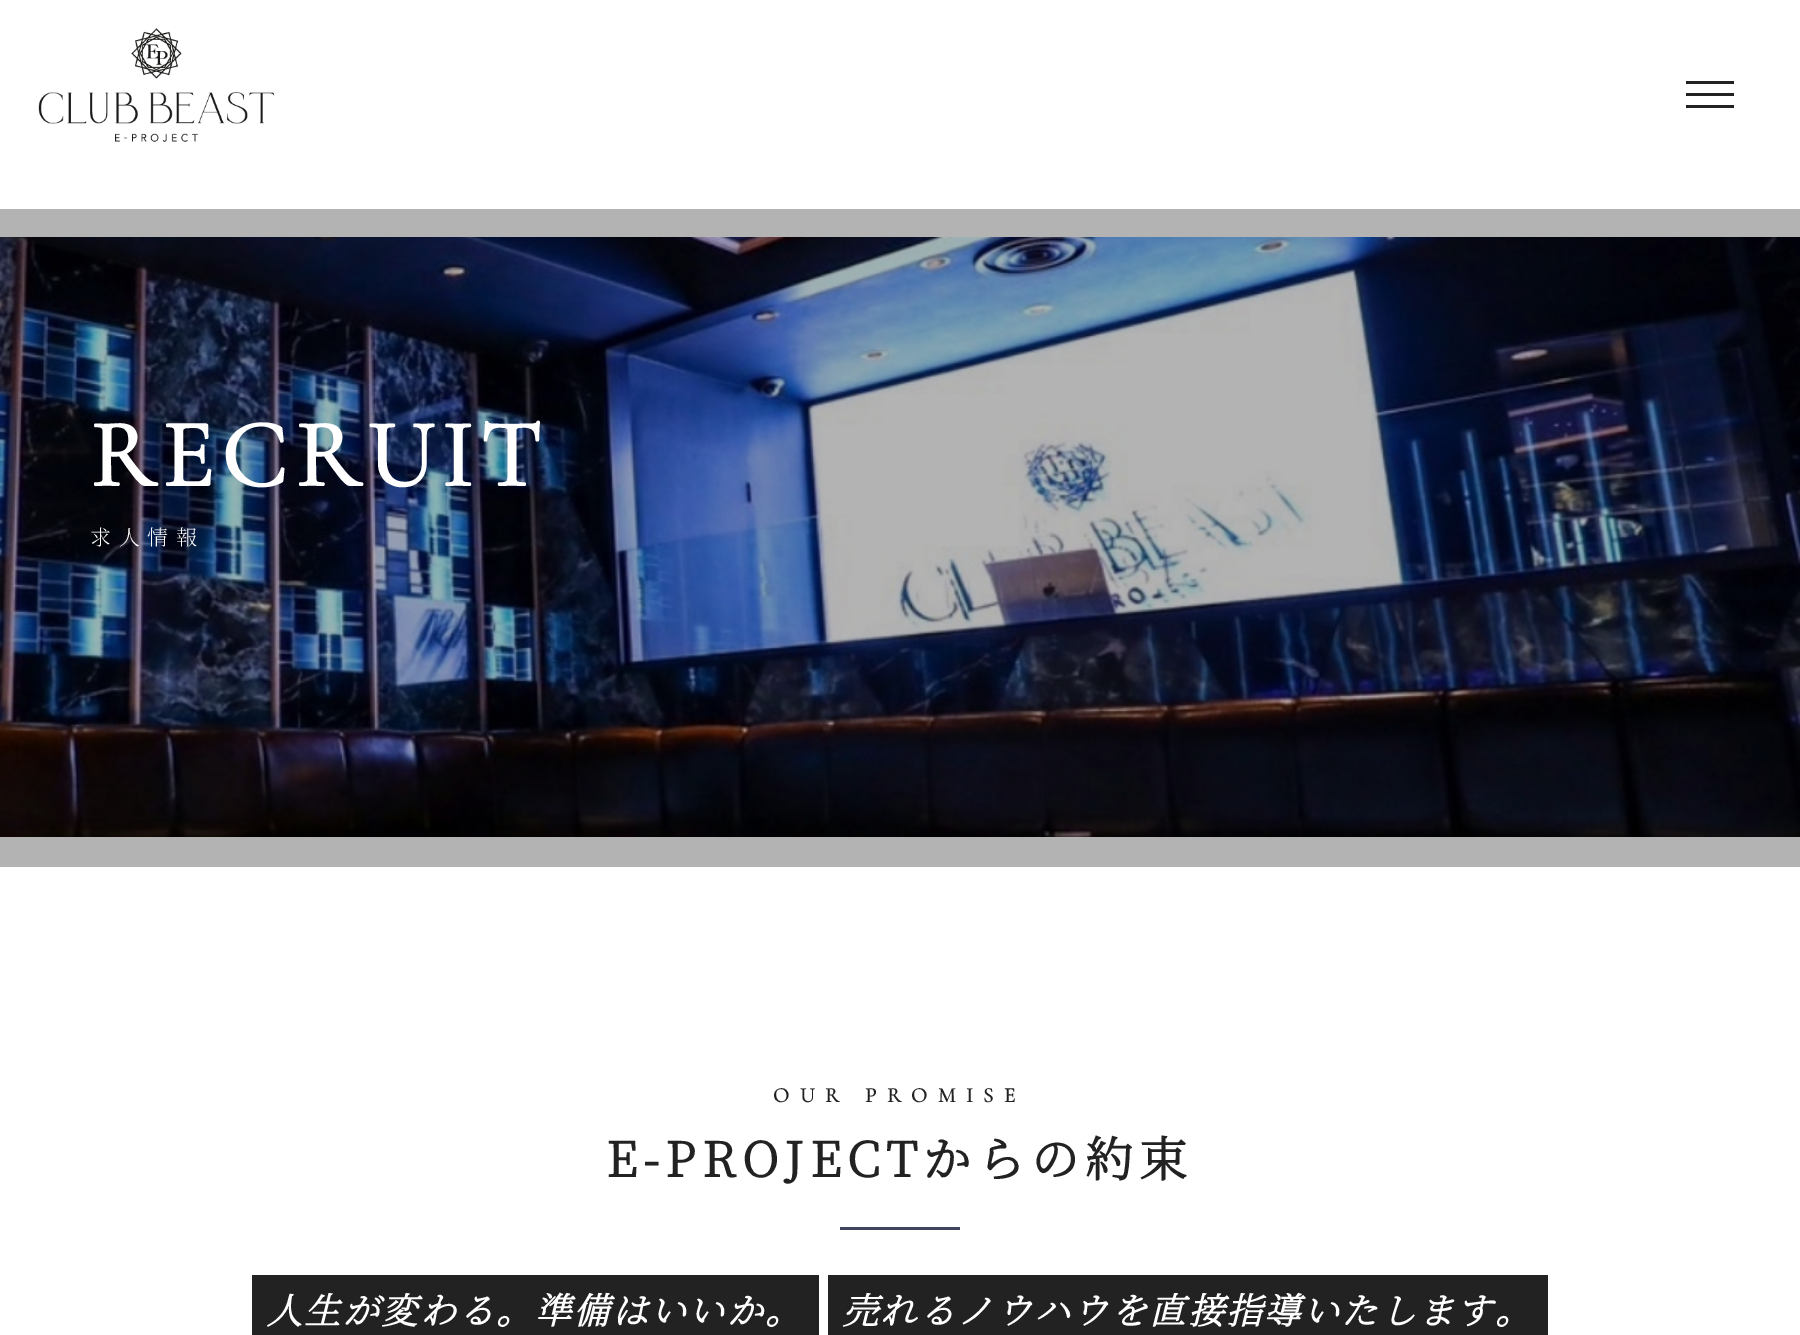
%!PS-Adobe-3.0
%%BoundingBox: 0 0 1800 1335
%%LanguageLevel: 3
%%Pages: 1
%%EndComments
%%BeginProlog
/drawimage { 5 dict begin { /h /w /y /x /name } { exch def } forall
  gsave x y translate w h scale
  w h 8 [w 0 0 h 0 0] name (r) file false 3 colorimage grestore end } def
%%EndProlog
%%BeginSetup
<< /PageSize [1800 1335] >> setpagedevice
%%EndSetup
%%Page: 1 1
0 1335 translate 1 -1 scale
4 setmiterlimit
1 setgray
0 0 1800 1335 rectfill
0.702 setgray
0 209 1800 658 rectfill
(images/1.raw) 38 28 237 114 drawimage
0.133 setgray
1686 93 48 3 rectfill
1686 81 48 3 rectfill
1686 105 48 3 rectfill
(images/2.raw) 0 237 1800 600 drawimage
0.259 0.271 0.369 setrgbcolor
840 1227 120 3 rectfill
0.133 setgray
252 1275 567 60 rectfill
828 1275 720 60 rectfill
/CormorantGaramond-Bold [96 0 0 -96 0 0] selectfont
1 setgray
90 486 moveto 7.5 0 (RECRUIT) ashow
/NotoSerifJP-ExtraLight [21 0 0 -21 0 0] selectfont
90 545 moveto 7.5 0 (求人情報) ashow
/CormorantGaramond-Bold [21 0 0 -21 0 0] selectfont
0.133 setgray
773 1102 moveto 10.5 0 (OUR PROMISE) ashow
/NotoSerifJP-Bold [48 0 0 -48 0 0] selectfont
606 1177 moveto 6 0 (E-PROJECTからの約束) ashow
/NotoSerifJP-BoldItalic [36 0 0 -36 0 0] selectfont
1 setgray
266 1324 moveto 2.4 0 (人生が変わる。準備はいいか。) ashow
842 1324 moveto 2.4 0 (売れるノウハウを直接指導いたします。) ashow
showpage
%%EOF
